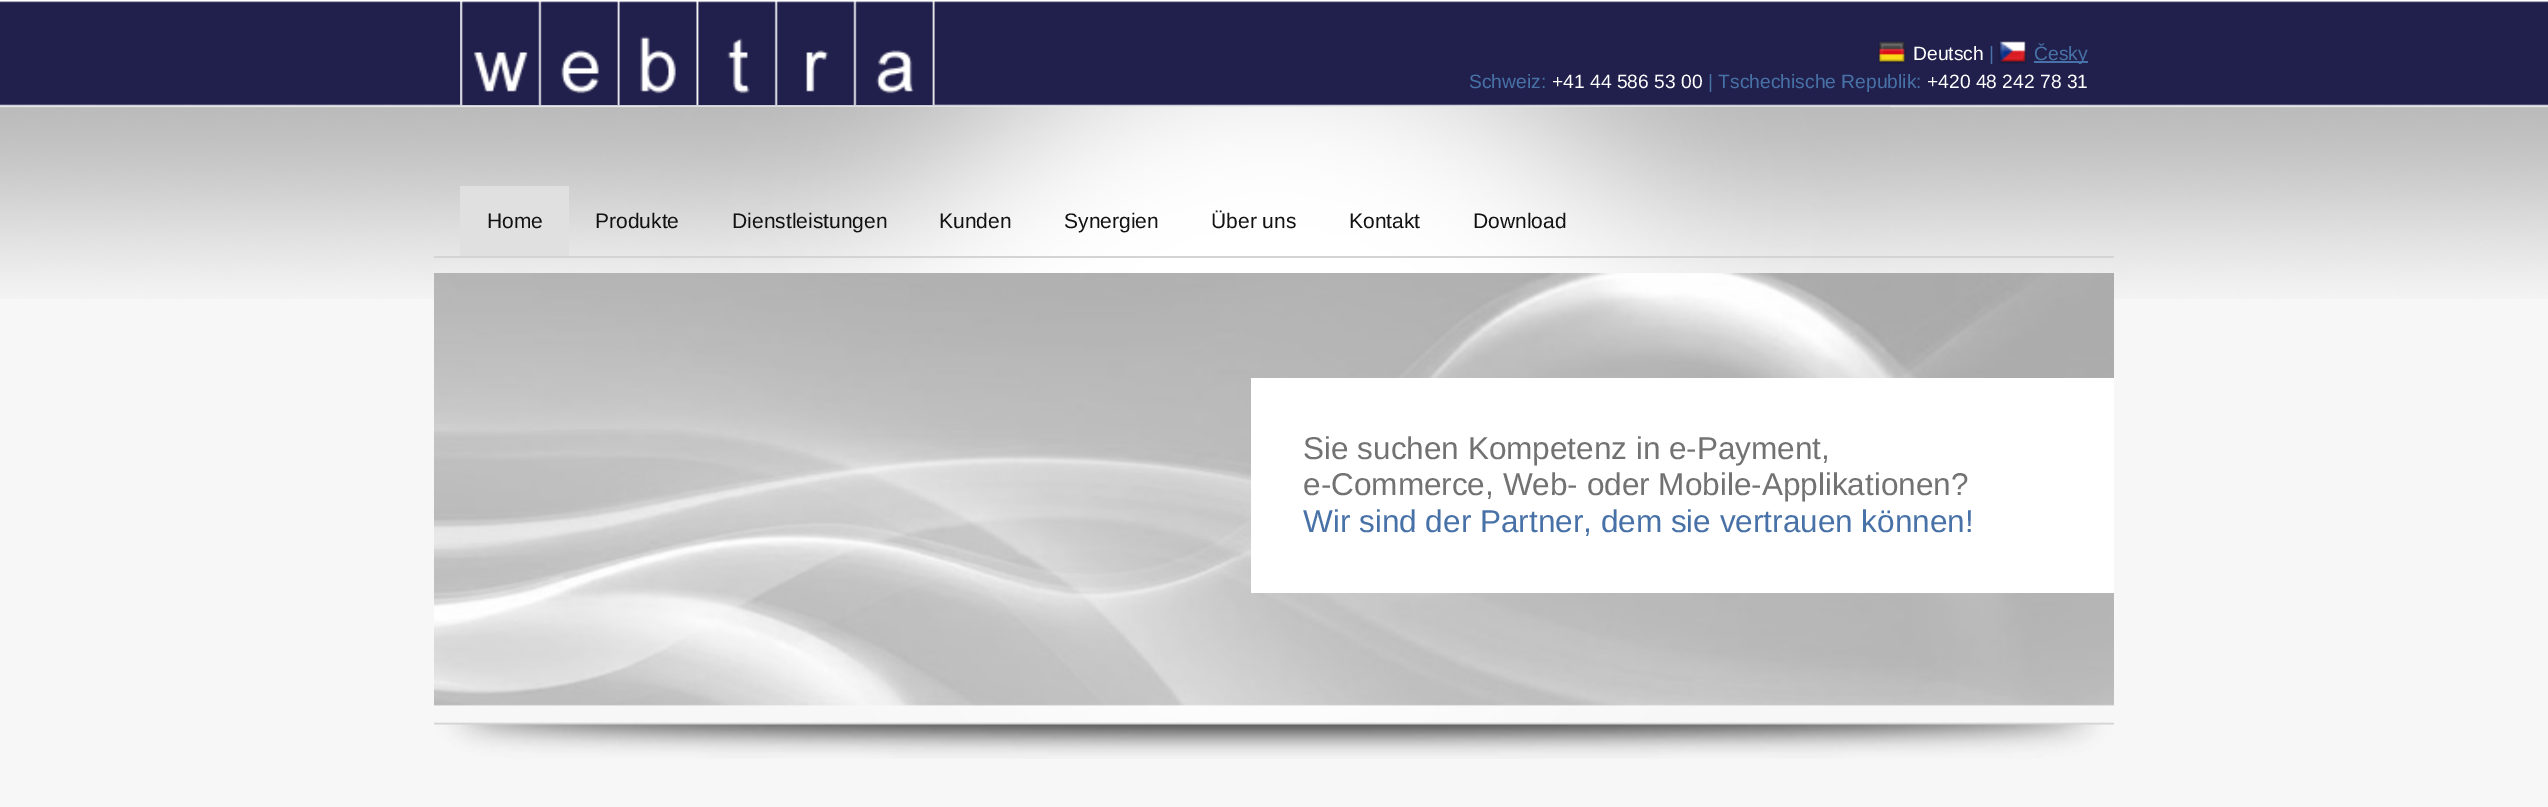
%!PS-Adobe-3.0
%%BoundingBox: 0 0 2548 807
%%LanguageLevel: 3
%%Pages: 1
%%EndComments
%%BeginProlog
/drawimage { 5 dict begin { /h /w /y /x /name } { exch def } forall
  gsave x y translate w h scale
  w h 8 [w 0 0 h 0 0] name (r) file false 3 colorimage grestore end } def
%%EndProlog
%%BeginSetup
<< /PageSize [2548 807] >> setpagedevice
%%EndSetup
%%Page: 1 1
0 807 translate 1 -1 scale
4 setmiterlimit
0.969 setgray
0 0 2548 807 rectfill
(images/1.raw) 0 0 2548 299 drawimage
(images/2.raw) 658 106 1232 167 drawimage
(images/3.raw) 460 1 475 104 drawimage
(images/4.raw) 1878 40 28 24 drawimage
(images/5.raw) 1998 40 29 24 drawimage
0.282 0.447 0.655 setrgbcolor
2034 61 54 2 rectfill
0.831 setgray
434 256 1680 2 rectfill
0.878 setgray
460 186 109 70 rectfill
(images/6.raw) 434 273 1680 486 drawimage
1 setgray
1251 378 863 215 rectfill
/LiberationSans-Regular [19.25 0 0 -19.25 0 0] selectfont
1913 60 moveto (Deutsch) show
0.282 0.447 0.655 setrgbcolor
1989 60 moveto (|) show
2034 60 moveto (Česky) show
1469 88 moveto (Schweiz:) show
1 setgray
1552 88 moveto (+41 44 586 53 00) show
0.282 0.447 0.655 setrgbcolor
1708 88 moveto (| Tschechische Republik:) show
1 setgray
1927 88 moveto (+420 48 242 78 31) show
/LiberationSans-Regular [21 0 0 -21 0 0] selectfont
0.071 setgray
487 228 moveto (Home) show
595 228 moveto (Produkte) show
732 228 moveto (Dienstleistungen) show
939 228 moveto (Kunden) show
1064 228 moveto (Synergien) show
1211 228 moveto (Über uns) show
1349 228 moveto (Kontakt) show
1473 228 moveto (Download) show
/LiberationSans-Regular [31.5 0 0 -31.5 0 0] selectfont
0.447 setgray
1303 459 moveto (Sie suchen Kompetenz in e-Payment,) show
1303 495 moveto (e-Commerce, Web- oder Mobile-Applikationen?) show
0.282 0.447 0.655 setrgbcolor
1303 532 moveto (Wir sind der Partner, dem sie vertrauen können!) show
showpage
%%EOF
